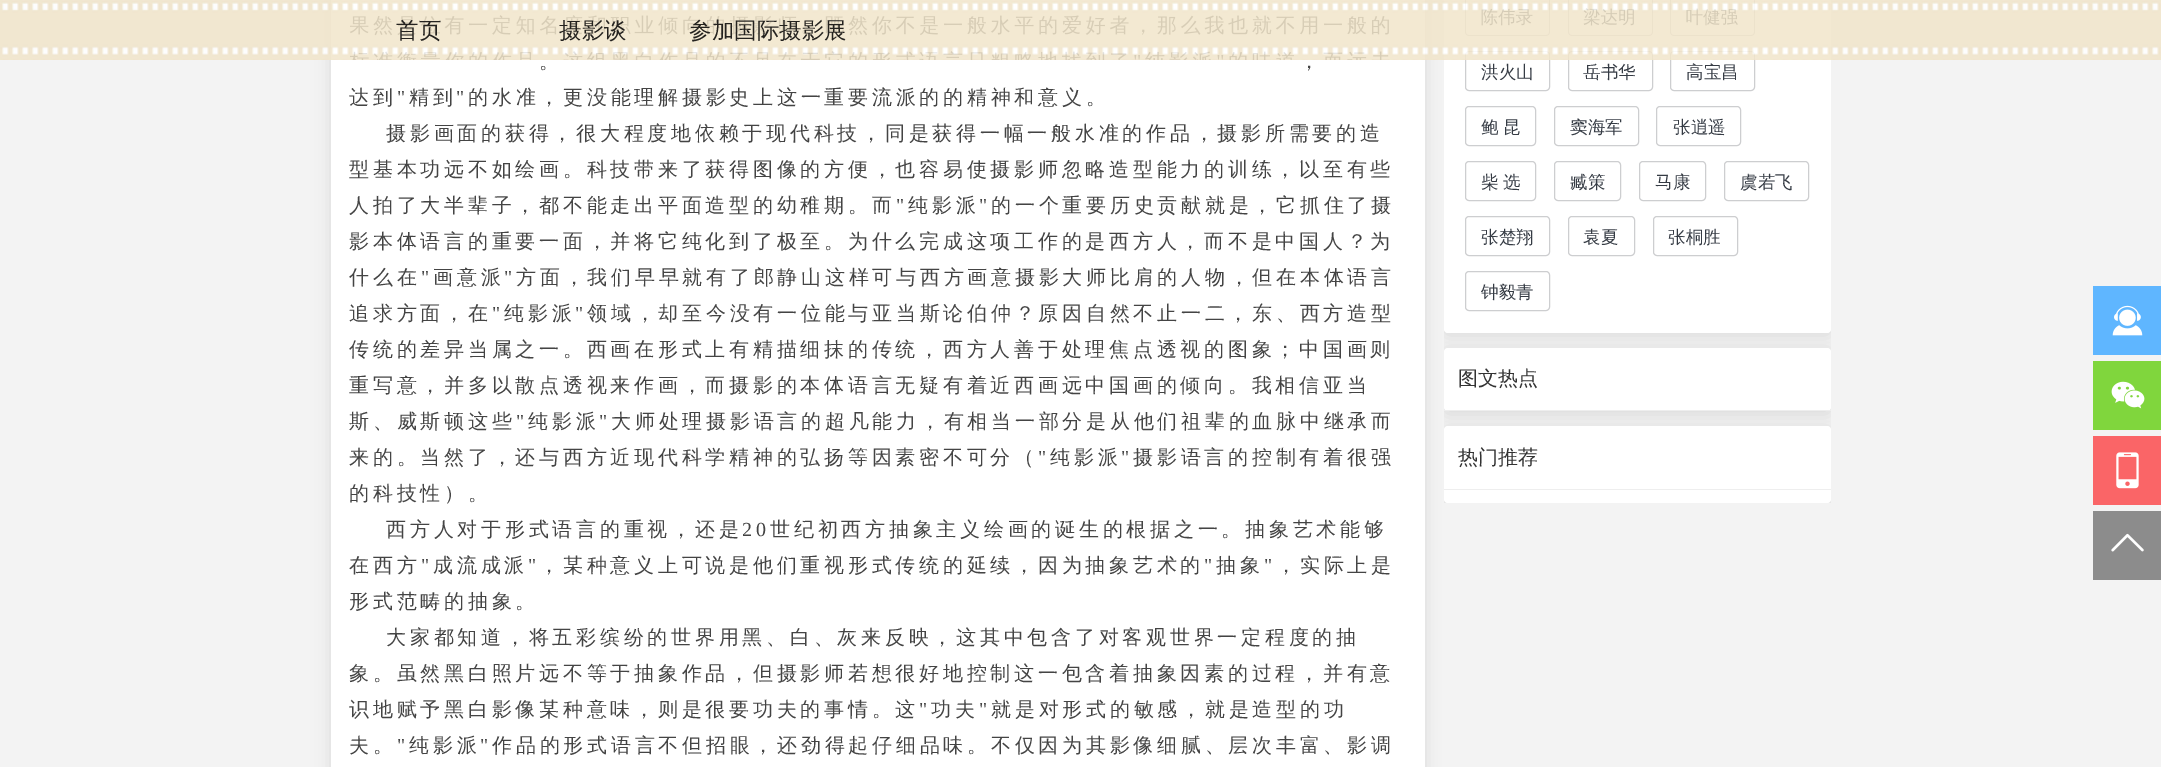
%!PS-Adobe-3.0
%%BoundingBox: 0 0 2161 767
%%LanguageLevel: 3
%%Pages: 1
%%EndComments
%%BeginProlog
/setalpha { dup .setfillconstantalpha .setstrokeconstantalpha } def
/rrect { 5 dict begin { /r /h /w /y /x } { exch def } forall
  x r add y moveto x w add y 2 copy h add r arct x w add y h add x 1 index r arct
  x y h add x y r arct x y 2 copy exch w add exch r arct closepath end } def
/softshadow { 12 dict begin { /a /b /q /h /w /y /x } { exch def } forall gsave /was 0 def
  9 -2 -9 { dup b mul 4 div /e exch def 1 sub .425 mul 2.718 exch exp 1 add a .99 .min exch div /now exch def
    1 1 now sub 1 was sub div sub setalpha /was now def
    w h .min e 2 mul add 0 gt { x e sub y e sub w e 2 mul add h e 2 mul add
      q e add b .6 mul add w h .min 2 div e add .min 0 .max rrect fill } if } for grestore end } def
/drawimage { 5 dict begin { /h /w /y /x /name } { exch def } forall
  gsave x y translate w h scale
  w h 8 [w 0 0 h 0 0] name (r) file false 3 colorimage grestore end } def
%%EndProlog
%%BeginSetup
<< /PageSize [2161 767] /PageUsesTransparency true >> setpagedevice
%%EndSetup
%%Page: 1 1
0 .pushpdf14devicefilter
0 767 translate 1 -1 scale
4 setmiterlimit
0.953 setgray
0 0 2161 767 rectfill
0 setgray
331 -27 1094 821 4 7.5 0.1 softshadow
1 setgray
331 0 1094 767 rectfill
gsave
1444 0 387 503 rectclip
0 setgray
1444 -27 387 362 4 7.5 0.1 softshadow
grestore
1444 -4 387 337 4 rrect fill
0.804 0.808 0.816 setrgbcolor
1465.5 -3.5 84 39 3.5 rrect stroke
1568.5 -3.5 84 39 3.5 rrect stroke
1670.5 -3.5 84 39 3.5 rrect stroke
1465.5 51.5 84 39 3.5 rrect stroke
1568.5 51.5 84 39 3.5 rrect stroke
1670.5 51.5 84 39 3.5 rrect stroke
(images/1.raw) 0 0 2161 60 drawimage
1465.5 106.5 70 39 3.5 rrect stroke
1554.5 106.5 84 39 3.5 rrect stroke
1656.5 106.5 84 39 3.5 rrect stroke
1465.5 161.5 70 39 3.5 rrect stroke
1554.5 161.5 66 39 3.5 rrect stroke
1639.5 161.5 66 39 3.5 rrect stroke
1724.5 161.5 84 39 3.5 rrect stroke
1465.5 216.5 84 39 3.5 rrect stroke
1568.5 216.5 66 39 3.5 rrect stroke
1653.5 216.5 84 39 3.5 rrect stroke
1465.5 271.5 84 39 3.5 rrect stroke
gsave
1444 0 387 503 rectclip
0 setgray
1444 350 387 64 4 7.5 0.1 softshadow
grestore
1 setgray
1444 348 387 63 4 rrect fill
0.933 setgray
1444 410 387 1 rectfill
gsave
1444 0 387 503 rectclip
0 setgray
1444 429 387 76 4 7.5 0.1 softshadow
grestore
1 setgray
1444 426 387 77 4 rrect fill
0.933 setgray
1444 489 387 1 rectfill
0.373 0.714 1 setrgbcolor
2093 286 68 69 rectfill
(images/2.raw) 2112 305 31 31 drawimage
0.502 0.839 0.239 setrgbcolor
2093 361 68 69 rectfill
(images/3.raw) 2111 381 34 28 drawimage
0.98 0.396 0.404 setrgbcolor
2093 436 68 69 rectfill
(images/4.raw) 2116 452 23 37 drawimage
0.549 setgray
2093 511 68 69 rectfill
(images/5.raw) 2111 533 33 19 drawimage
/WenQuanYiZenHei-Medium [22.5 0 0 -22.5 0 0] selectfont
0.141 0.133 0.122 setrgbcolor
396 38 moveto (首页) show
559 38 moveto (摄影谈) show
689 38 moveto (参加国际摄影展) show
/WenQuanYiZenHei-Medium [20 0 0 -20 0 0] selectfont
0.267 setgray
539 68 moveto 3.75 0 (。) ashow
1299 68 moveto 3.75 0 (，) ashow
349 104 moveto 3.75 0 (达到) ashow
/LiberationSerif-Regular [20 0 0 -20 0 0] selectfont
397 104 moveto 3.75 0 (") ashow
/WenQuanYiZenHei-Medium [20 0 0 -20 0 0] selectfont
409 104 moveto 3.75 0 (精到) ashow
/LiberationSerif-Regular [20 0 0 -20 0 0] selectfont
456 104 moveto 3.75 0 (") ashow
/WenQuanYiZenHei-Medium [20 0 0 -20 0 0] selectfont
468 104 moveto 3.75 0 (的水准，更没能理解摄影史上这一重要流派的的精神和意义。) ashow
386 140 moveto 3.75 0 (摄影画面的获得，很大程度地依赖于现代科技，同是获得一幅一般水准的作品，摄影所需要的造) ashow
349 176 moveto 3.75 0 (型基本功远不如绘画。科技带来了获得图像的方便，也容易使摄影师忽略造型能力的训练，以至有些) ashow
349 212 moveto 3.75 0 (人拍了大半辈子，都不能走出平面造型的幼稚期。而) ashow
/LiberationSerif-Regular [20 0 0 -20 0 0] selectfont
896 212 moveto 3.75 0 (") ashow
/WenQuanYiZenHei-Medium [20 0 0 -20 0 0] selectfont
908 212 moveto 3.75 0 (纯影派) ashow
/LiberationSerif-Regular [20 0 0 -20 0 0] selectfont
979 212 moveto 3.75 0 (") ashow
/WenQuanYiZenHei-Medium [20 0 0 -20 0 0] selectfont
991 212 moveto 3.75 0 (的一个重要历史贡献就是，它抓住了摄) ashow
349 248 moveto 3.75 0 (影本体语言的重要一面，并将它纯化到了极至。为什么完成这项工作的是西方人，而不是中国人？为) ashow
349 284 moveto 3.75 0 (什么在) ashow
/LiberationSerif-Regular [20 0 0 -20 0 0] selectfont
421 284 moveto 3.75 0 (") ashow
/WenQuanYiZenHei-Medium [20 0 0 -20 0 0] selectfont
433 284 moveto 3.75 0 (画意派) ashow
/LiberationSerif-Regular [20 0 0 -20 0 0] selectfont
504 284 moveto 3.75 0 (") ashow
/WenQuanYiZenHei-Medium [20 0 0 -20 0 0] selectfont
516 284 moveto 3.75 0 (方面，我们早早就有了郎静山这样可与西方画意摄影大师比肩的人物，但在本体语言) ashow
349 320 moveto 3.75 0 (追求方面，在) ashow
/LiberationSerif-Regular [20 0 0 -20 0 0] selectfont
492 320 moveto 3.75 0 (") ashow
/WenQuanYiZenHei-Medium [20 0 0 -20 0 0] selectfont
504 320 moveto 3.75 0 (纯影派) ashow
/LiberationSerif-Regular [20 0 0 -20 0 0] selectfont
575 320 moveto 3.75 0 (") ashow
/WenQuanYiZenHei-Medium [20 0 0 -20 0 0] selectfont
587 320 moveto 3.75 0 (领域，却至今没有一位能与亚当斯论伯仲？原因自然不止一二，东、西方造型) ashow
349 356 moveto 3.75 0 (传统的差异当属之一。西画在形式上有精描细抹的传统，西方人善于处理焦点透视的图象；中国画则) ashow
349 392 moveto 3.75 0 (重写意，并多以散点透视来作画，而摄影的本体语言无疑有着近西画远中国画的倾向。我相信亚当) ashow
349 428 moveto 3.75 0 (斯、威斯顿这些) ashow
/LiberationSerif-Regular [20 0 0 -20 0 0] selectfont
516 428 moveto 3.75 0 (") ashow
/WenQuanYiZenHei-Medium [20 0 0 -20 0 0] selectfont
528 428 moveto 3.75 0 (纯影派) ashow
/LiberationSerif-Regular [20 0 0 -20 0 0] selectfont
599 428 moveto 3.75 0 (") ashow
/WenQuanYiZenHei-Medium [20 0 0 -20 0 0] selectfont
611 428 moveto 3.75 0 (大师处理摄影语言的超凡能力，有相当一部分是从他们祖辈的血脉中继承而) ashow
349 464 moveto 3.75 0 (来的。当然了，还与西方近现代科学精神的弘扬等因素密不可分（) ashow
/LiberationSerif-Regular [20 0 0 -20 0 0] selectfont
1038 464 moveto 3.75 0 (") ashow
/WenQuanYiZenHei-Medium [20 0 0 -20 0 0] selectfont
1050 464 moveto 3.75 0 (纯影派) ashow
/LiberationSerif-Regular [20 0 0 -20 0 0] selectfont
1121 464 moveto 3.75 0 (") ashow
/WenQuanYiZenHei-Medium [20 0 0 -20 0 0] selectfont
1133 464 moveto 3.75 0 (摄影语言的控制有着很强) ashow
349 500 moveto 3.75 0 (的科技性）。) ashow
386 536 moveto 3.75 0 (西方人对于形式语言的重视，还是) ashow
/LiberationSerif-Regular [20 0 0 -20 0 0] selectfont
742 536 moveto 3.75 0 (20) ashow
/WenQuanYiZenHei-Medium [20 0 0 -20 0 0] selectfont
770 536 moveto 3.75 0 (世纪初西方抽象主义绘画的诞生的根据之一。抽象艺术能够) ashow
349 572 moveto 3.75 0 (在西方) ashow
/LiberationSerif-Regular [20 0 0 -20 0 0] selectfont
421 572 moveto 3.75 0 (") ashow
/WenQuanYiZenHei-Medium [20 0 0 -20 0 0] selectfont
433 572 moveto 3.75 0 (成流成派) ashow
/LiberationSerif-Regular [20 0 0 -20 0 0] selectfont
528 572 moveto 3.75 0 (") ashow
/WenQuanYiZenHei-Medium [20 0 0 -20 0 0] selectfont
539 572 moveto 3.75 0 (，某种意义上可说是他们重视形式传统的延续，因为抽象艺术的) ashow
/LiberationSerif-Regular [20 0 0 -20 0 0] selectfont
1204 572 moveto 3.75 0 (") ashow
/WenQuanYiZenHei-Medium [20 0 0 -20 0 0] selectfont
1216 572 moveto 3.75 0 (抽象) ashow
/LiberationSerif-Regular [20 0 0 -20 0 0] selectfont
1264 572 moveto 3.75 0 (") ashow
/WenQuanYiZenHei-Medium [20 0 0 -20 0 0] selectfont
1276 572 moveto 3.75 0 (，实际上是) ashow
349 608 moveto 3.75 0 (形式范畴的抽象。) ashow
386 644 moveto 3.75 0 (大家都知道，将五彩缤纷的世界用黑、白、灰来反映，这其中包含了对客观世界一定程度的抽) ashow
349 680 moveto 3.75 0 (象。虽然黑白照片远不等于抽象作品，但摄影师若想很好地控制这一包含着抽象因素的过程，并有意) ashow
349 716 moveto 3.75 0 (识地赋予黑白影像某种意味，则是很要功夫的事情。这) ashow
/LiberationSerif-Regular [20 0 0 -20 0 0] selectfont
919 716 moveto 3.75 0 (") ashow
/WenQuanYiZenHei-Medium [20 0 0 -20 0 0] selectfont
931 716 moveto 3.75 0 (功夫) ashow
/LiberationSerif-Regular [20 0 0 -20 0 0] selectfont
979 716 moveto 3.75 0 (") ashow
/WenQuanYiZenHei-Medium [20 0 0 -20 0 0] selectfont
991 716 moveto 3.75 0 (就是对形式的敏感，就是造型的功) ashow
349 752 moveto 3.75 0 (夫。) ashow
/LiberationSerif-Regular [20 0 0 -20 0 0] selectfont
397 752 moveto 3.75 0 (") ashow
/WenQuanYiZenHei-Medium [20 0 0 -20 0 0] selectfont
409 752 moveto 3.75 0 (纯影派) ashow
/LiberationSerif-Regular [20 0 0 -20 0 0] selectfont
480 752 moveto 3.75 0 (") ashow
/WenQuanYiZenHei-Medium [20 0 0 -20 0 0] selectfont
492 752 moveto 3.75 0 (作品的形式语言不但招眼，还劲得起仔细品味。不仅因为其影像细腻、层次丰富、影调) ashow
/WenQuanYiZenHei-Medium [17.5 0 0 -17.5 0 0] selectfont
0.208 0.231 0.267 setrgbcolor
1481 78 moveto (洪火山) show
1583 78 moveto (岳书华) show
1686 78 moveto (高宝昌) show
1481 133 moveto (鲍) show
1503 133 moveto (昆) show
1570 133 moveto (窦海军) show
1673 133 moveto (张逍遥) show
1481 188 moveto (柴) show
1503 188 moveto (选) show
1570 188 moveto (臧策) show
1655 188 moveto (马康) show
1740 188 moveto (虞若飞) show
1481 243 moveto (张楚翔) show
1583 243 moveto (袁夏) show
1668 243 moveto (张桐胜) show
1481 298 moveto (钟毅青) show
/WenQuanYiZenHei-Medium [20 0 0 -20 0 0] selectfont
0.2 setgray
1458 385 moveto (图文热点) show
1458 464 moveto (热门推荐) show
.poppdf14devicefilter showpage
%%EOF
